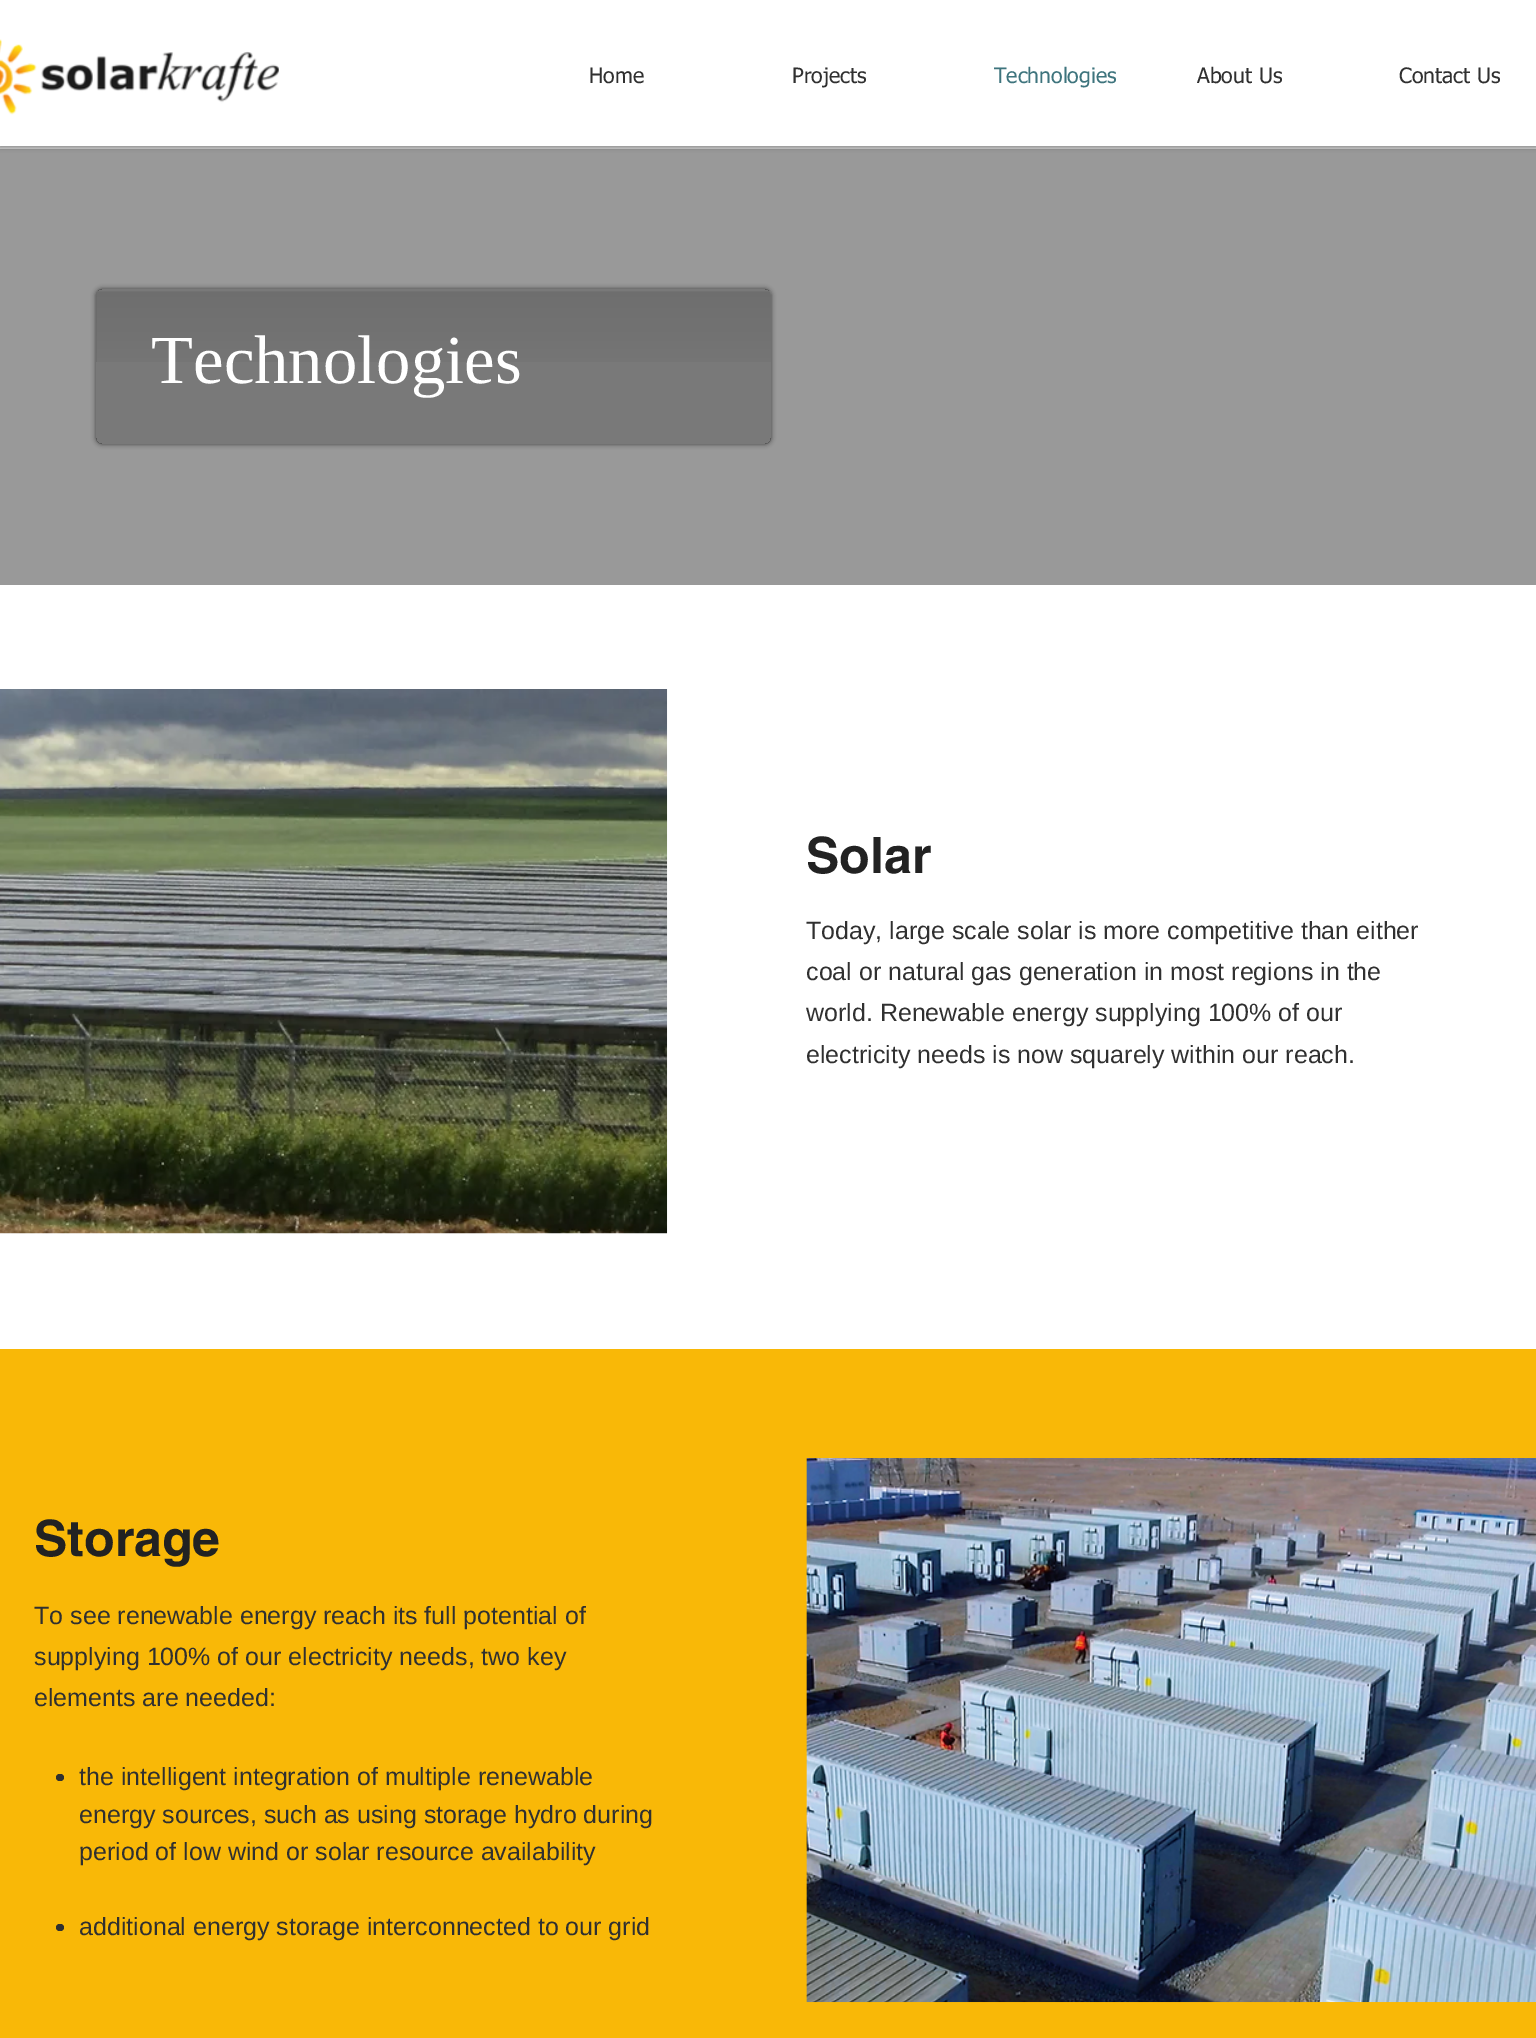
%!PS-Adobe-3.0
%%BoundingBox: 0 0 1536 2038
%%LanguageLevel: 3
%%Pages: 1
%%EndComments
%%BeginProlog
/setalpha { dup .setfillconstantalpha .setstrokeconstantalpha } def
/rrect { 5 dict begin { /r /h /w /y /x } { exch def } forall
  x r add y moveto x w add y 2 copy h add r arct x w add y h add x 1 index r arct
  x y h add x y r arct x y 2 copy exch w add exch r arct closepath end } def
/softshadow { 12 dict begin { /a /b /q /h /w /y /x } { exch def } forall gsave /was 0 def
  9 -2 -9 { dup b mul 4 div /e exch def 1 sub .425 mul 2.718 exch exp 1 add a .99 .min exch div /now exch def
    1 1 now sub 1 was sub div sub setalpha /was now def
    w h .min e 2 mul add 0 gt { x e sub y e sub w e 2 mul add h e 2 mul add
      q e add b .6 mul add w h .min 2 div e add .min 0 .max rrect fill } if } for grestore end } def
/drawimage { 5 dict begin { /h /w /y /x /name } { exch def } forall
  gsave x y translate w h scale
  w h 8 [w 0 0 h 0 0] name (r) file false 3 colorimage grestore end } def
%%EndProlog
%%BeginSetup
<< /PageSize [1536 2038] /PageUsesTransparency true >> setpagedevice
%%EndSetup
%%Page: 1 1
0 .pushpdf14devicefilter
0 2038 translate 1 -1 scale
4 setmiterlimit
0.8 setgray
0 0 1536 2038 rectfill
0.6 setgray
0 149 1536 436 rectfill
0 setgray
0 0 1536 146 0 3 0.5 softshadow
1 setgray
0 0 1536 146 rectfill
(images/1.raw) 0 39 279 76 drawimage
gsave
newpath 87 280 moveto 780 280 lineto 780 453 lineto 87 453 lineto closepath 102 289 moveto 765 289 lineto 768.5 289 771 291.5 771 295 curveto 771 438 lineto 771 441.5 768.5 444 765 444 curveto 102 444 lineto 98.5 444 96 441.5 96 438 curveto 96 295 lineto 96 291.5 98.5 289 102 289 curveto closepath eoclip newpath
0 setgray
96 289 675 155 6 2.5 0.6 softshadow
grestore
0.31 setalpha
0.196 setgray
96 289 675 155 6 rrect fill
1 setalpha
(images/2.raw) 96 291 675 71 drawimage
1 setgray
0 585 1536 764 rectfill
(images/3.raw) 0 689 668 545 drawimage
0.976 0.722 0.027 setrgbcolor
0 1349 1536 689 rectfill
0.188 setgray
56 1774 8 7 3.5 rrect fill
56 1924 8 7 3.5 rrect fill
(images/4.raw) 806 1458 730 545 drawimage
/tahoma-Regular [21.25 0 0 -21.25 0 0] selectfont
589 83 moveto (Home) show
792 83 moveto (Projects) show
0.243 0.455 0.49 setrgbcolor
994 83 moveto (Technologies) show
0.188 setgray
1197 83 moveto (About Us) show
1399 83 moveto (Contact Us) show
/LiberationSerif-Regular [68.75 0 0 -68.75 0 0] selectfont
1 setgray
151 383 moveto (Technologies) show
/helvetica-Bold [50 0 0 -50 0 0] selectfont
0.133 setgray
806 873 moveto (Solar) show
/LiberationSans-Regular [25 0 0 -25 0 0] selectfont
0.188 setgray
806 939 moveto (Today, large scale solar is more competitive than either) show
806 980 moveto (coal or natural gas generation in most regions in the) show
806 1021 moveto (world. Renewable energy supplying 100% of our) show
806 1063 moveto (electricity needs is now squarely within our reach.) show
/helvetica-Bold [50 0 0 -50 0 0] selectfont
0.133 setgray
34 1556 moveto (Storage) show
/LiberationSans-Regular [25 0 0 -25 0 0] selectfont
0.188 setgray
34 1624 moveto (To see renewable energy reach its full potential of) show
34 1665 moveto (supplying 100% of our electricity needs, two key) show
34 1706 moveto (elements are needed:) show
79 1785 moveto (the intelligent integration of multiple renewable) show
79 1823 moveto (energy sources, such as using storage hydro during) show
79 1860 moveto (period of low wind or solar resource availability) show
79 1935 moveto (additional energy storage interconnected to our grid) show
.poppdf14devicefilter showpage
%%EOF
